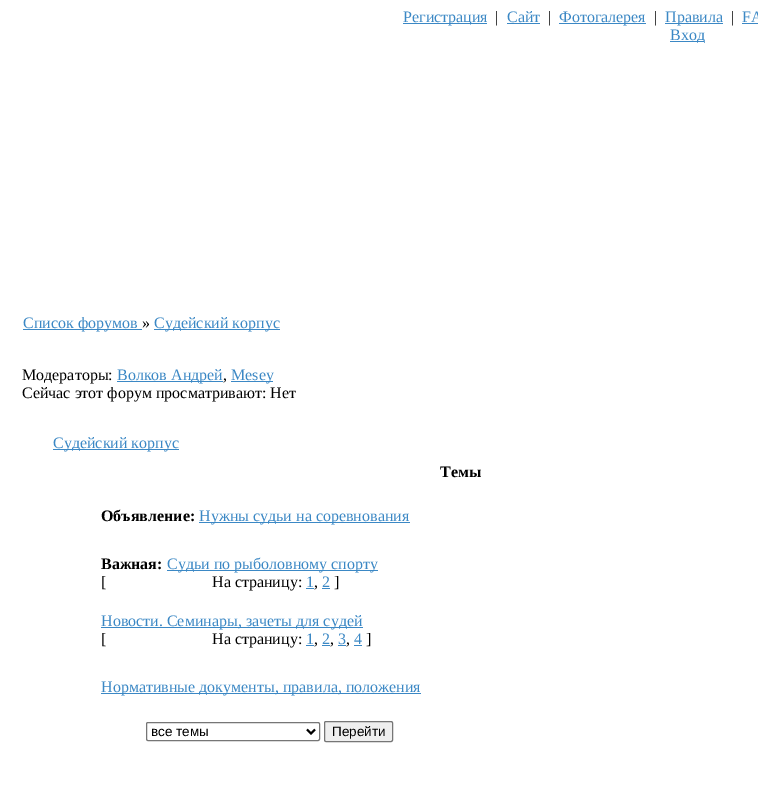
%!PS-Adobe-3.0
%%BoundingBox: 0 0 758 790
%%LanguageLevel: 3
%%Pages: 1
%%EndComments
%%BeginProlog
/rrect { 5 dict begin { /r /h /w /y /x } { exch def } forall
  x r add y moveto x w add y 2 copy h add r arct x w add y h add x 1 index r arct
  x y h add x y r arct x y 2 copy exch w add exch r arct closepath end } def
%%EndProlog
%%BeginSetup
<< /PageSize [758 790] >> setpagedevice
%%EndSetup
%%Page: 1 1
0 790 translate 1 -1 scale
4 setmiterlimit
1 setgray
0 0 758 790 rectfill
0.231 0.533 0.773 setrgbcolor
403 23 84 1 rectfill
507 23 33 1 rectfill
559 23 87 1 rectfill
665 23 58 1 rectfill
742 23 16 1 rectfill
670 41 34 1 rectfill
23 329 119 1 rectfill
154 329 126 1 rectfill
117 381 106 1 rectfill
231 381 42 1 rectfill
53 449 126 1 rectfill
199 522 211 1 rectfill
167 570 211 1 rectfill
306 588 8 1 rectfill
322 588 8 1 rectfill
101 627 262 1 rectfill
306 645 8 1 rectfill
322 645 8 1 rectfill
338 645 8 1 rectfill
354 645 8 1 rectfill
101 693 320 1 rectfill
0.463 setgray
146.5 722.5 173 18 1.5 rrect stroke
0 setgray
2 setlinewidth
newpath 307 729.5 moveto 311 733.5 lineto 315 729.5 lineto stroke
0.937 setgray
324.5 721.5 68 20 1.5 rrect gsave fill grestore
0.463 setgray
1 setlinewidth
stroke
/LiberationSerif-Regular [16 0 0 -16 0 0] selectfont
0.231 0.533 0.773 setrgbcolor
403 22 moveto (Регистрация) show
0 setgray
495 22 moveto (|) show
0.231 0.533 0.773 setrgbcolor
507 22 moveto (Сайт) show
0 setgray
548 22 moveto (|) show
0.231 0.533 0.773 setrgbcolor
559 22 moveto (Фотогалерея) show
0 setgray
654 22 moveto (|) show
0.231 0.533 0.773 setrgbcolor
665 22 moveto (Правила) show
0 setgray
731 22 moveto (|) show
0.231 0.533 0.773 setrgbcolor
742 22 moveto (FA) show
670 40 moveto (Вход) show
23 328 moveto (Список форумов) show
0 setgray
142 328 moveto (») show
0.231 0.533 0.773 setrgbcolor
154 328 moveto (Судейский корпус) show
0 setgray
22 380 moveto (Модераторы:) show
0.231 0.533 0.773 setrgbcolor
117 380 moveto (Волков Андрей) show
0 setgray
223 380 moveto (,) show
0.231 0.533 0.773 setrgbcolor
231 380 moveto (Mesey) show
0 setgray
22 398 moveto (Сейчас этот форум просматривают: Нет) show
0.231 0.533 0.773 setrgbcolor
53 448 moveto (Судейский корпус) show
/LiberationSerif-Bold [16 0 0 -16 0 0] selectfont
0 setgray
440 477 moveto (Темы) show
101 521 moveto (Объявление:) show
/LiberationSerif-Regular [16 0 0 -16 0 0] selectfont
0.231 0.533 0.773 setrgbcolor
199 521 moveto (Нужны судьи на соревнования) show
/LiberationSerif-Bold [16 0 0 -16 0 0] selectfont
0 setgray
101 569 moveto (Важная:) show
/LiberationSerif-Regular [16 0 0 -16 0 0] selectfont
0.231 0.533 0.773 setrgbcolor
167 569 moveto (Судьи по рыболовному спорту) show
0 setgray
101 587 moveto ([) show
212 587 moveto (На страницу:) show
0.231 0.533 0.773 setrgbcolor
306 587 moveto (1) show
322 587 moveto (2) show
0 setgray
334 587 moveto (]) show
314 587 moveto (,) show
0.231 0.533 0.773 setrgbcolor
101 626 moveto (Новости. Семинары, зачеты для судей) show
0 setgray
101 644 moveto ([) show
212 644 moveto (На страницу:) show
0.231 0.533 0.773 setrgbcolor
306 644 moveto (1) show
322 644 moveto (2) show
338 644 moveto (3) show
354 644 moveto (4) show
0 setgray
366 644 moveto (]) show
314 644 moveto (,) show
330 644 moveto (,) show
346 644 moveto (,) show
0.231 0.533 0.773 setrgbcolor
101 692 moveto (Нормативные документы, правила, положения) show
/LiberationSans-Regular [13.5 0 0 -13.5 0 0] selectfont
0 setgray
151 736 moveto (все темы) show
332 736 moveto (Перейти) show
showpage
%%EOF
